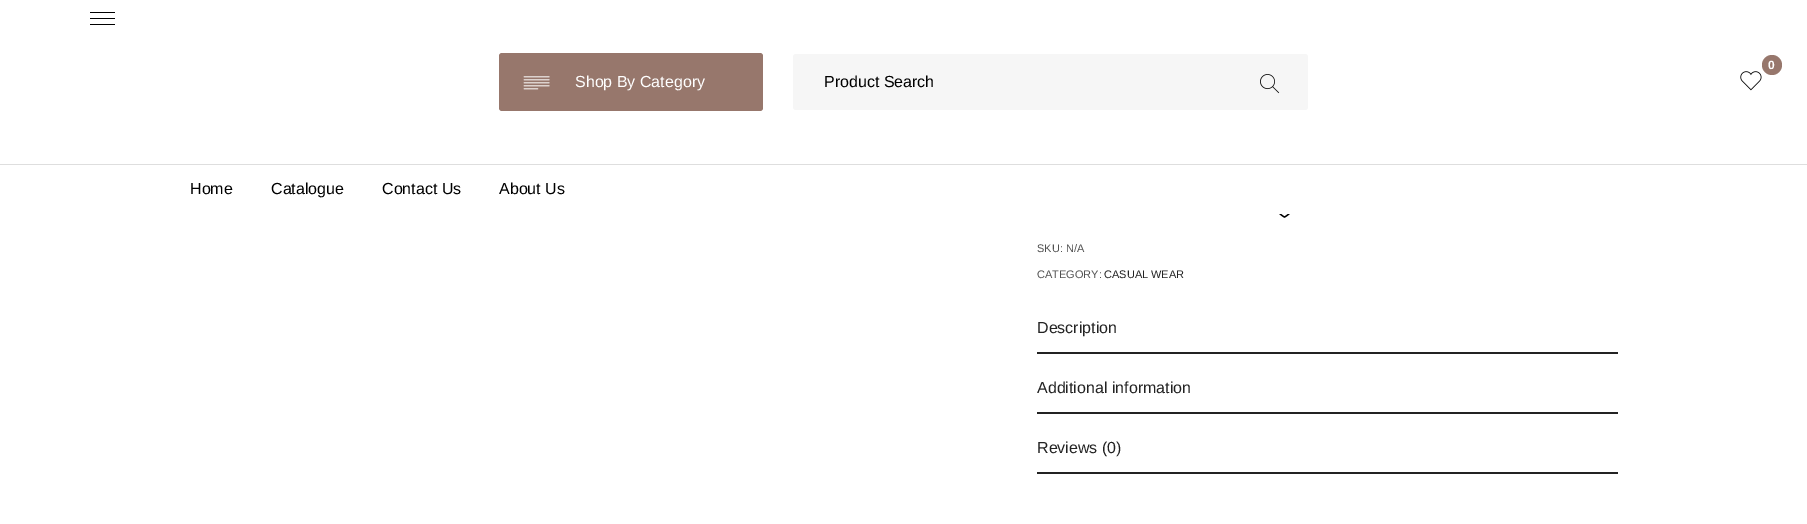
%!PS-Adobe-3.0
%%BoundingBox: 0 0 1807 524
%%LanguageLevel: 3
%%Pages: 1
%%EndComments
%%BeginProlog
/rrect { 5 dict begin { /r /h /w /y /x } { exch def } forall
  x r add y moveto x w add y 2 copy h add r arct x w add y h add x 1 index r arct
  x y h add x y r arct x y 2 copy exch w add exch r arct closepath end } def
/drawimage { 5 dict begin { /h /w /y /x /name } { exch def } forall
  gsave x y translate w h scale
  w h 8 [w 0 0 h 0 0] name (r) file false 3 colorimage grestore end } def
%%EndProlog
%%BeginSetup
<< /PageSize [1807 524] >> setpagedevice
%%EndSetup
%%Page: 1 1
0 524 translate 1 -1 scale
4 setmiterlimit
1 setgray
0 0 1807 524 rectfill
0 setgray
90 18 25 1 0.5 rrect fill
90 12 25 1 0.5 rrect fill
90 24 25 1 0.5 rrect fill
0.592 0.467 0.424 setrgbcolor
newpath 1772 65 10 0 360 arc closepath fill
(images/1.raw) 1740 71 22 20 drawimage
499 53 264 58 3 rrect fill
(images/2.raw) 523 76 27 14 drawimage
0.965 setgray
793 54 515 56 3 rrect fill
(images/3.raw) 1260 74 20 20 drawimage
0.871 setgray
0 164 1807 1 rectfill
(images/4.raw) 1279 214 11 4 drawimage
0.137 setgray
1037 352 581 2 rectfill
1037 412 581 2 rectfill
1037 472 581 2 rectfill
/LiberationSans-Bold [12 0 0 -12 0 0] selectfont
1 setgray
1768 69 moveto (0) show
/LiberationSans-Regular [16 0 0 -16 0 0] selectfont
575 87 moveto (Shop By Category) show
0 setgray
824 87 moveto (Product Search) show
190 194 moveto (Home) show
271 194 moveto (Catalogue) show
382 194 moveto (Contact Us) show
499 194 moveto (About Us) show
/LiberationSans-Regular [11 0 0 -11 0 0] selectfont
0.318 setgray
1037 252 moveto (SKU: N/A) show
1037 278 moveto (CATEGORY:) show
0.137 setgray
1104 278 moveto (CASUAL WEAR) show
/LiberationSans-Regular [16 0 0 -16 0 0] selectfont
1037 333 moveto (Description) show
1037 393 moveto (Additional information) show
1037 453 moveto (Reviews \(0\)) show
showpage
%%EOF
